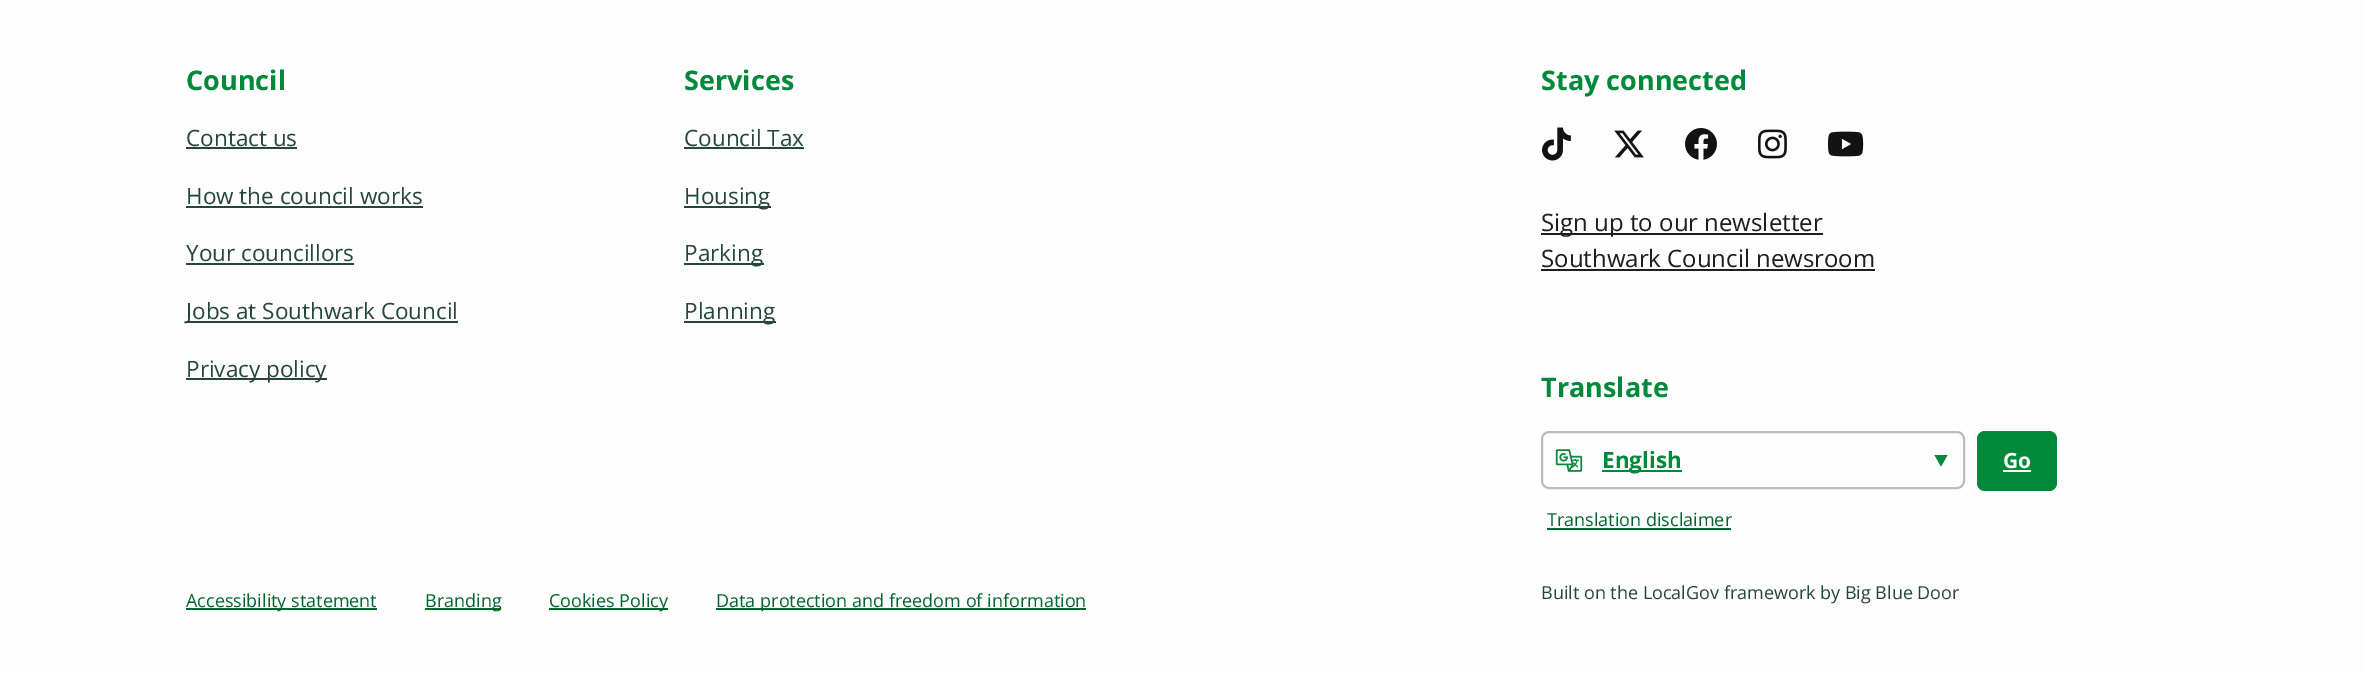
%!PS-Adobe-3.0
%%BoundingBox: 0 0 2364 673
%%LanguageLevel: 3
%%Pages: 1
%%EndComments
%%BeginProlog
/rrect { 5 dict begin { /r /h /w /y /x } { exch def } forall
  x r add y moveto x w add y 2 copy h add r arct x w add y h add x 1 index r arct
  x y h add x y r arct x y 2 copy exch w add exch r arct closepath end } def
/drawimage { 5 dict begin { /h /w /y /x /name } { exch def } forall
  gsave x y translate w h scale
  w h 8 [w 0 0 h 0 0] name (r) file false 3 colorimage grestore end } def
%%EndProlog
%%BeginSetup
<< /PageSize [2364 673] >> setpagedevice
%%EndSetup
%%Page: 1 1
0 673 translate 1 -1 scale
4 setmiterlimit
0.992 setgray
0 0 2364 673 rectfill
0.145 0.275 0.239 setrgbcolor
186 147 111 2 rectfill
186 206 237 2 rectfill
186 263 168 2 rectfill
186 321 272 2 rectfill
186 378 141 2 rectfill
684 147 120 2 rectfill
684 206 87 2 rectfill
684 263 80 2 rectfill
684 321 92 2 rectfill
(images/1.raw) 1542 127 29 34 drawimage
(images/2.raw) 1614 130 30 28 drawimage
(images/3.raw) 1685 128 32 32 drawimage
(images/4.raw) 1758 129 29 30 drawimage
(images/5.raw) 1827 131 37 26 drawimage
0.118 setgray
1541 233 282 2 rectfill
1541 269 334 2 rectfill
0 0.533 0.231 setrgbcolor
newpath 1941 466.5 moveto 1934.5 455 lineto 1947.5 455 lineto closepath fill
0.741 setgray
2 setlinewidth
1542 432 422 56 7 rrect stroke
(images/6.raw) 1555 449 28 23 drawimage
0 0.533 0.231 setrgbcolor
1602 470 80 2 rectfill
1977 431 80 60 8 rrect fill
1 setgray
2003 470 28 2 rectfill
0 0.4 0.173 setrgbcolor
1547 528 184 2 rectfill
186 608 191 2 rectfill
425 608 76 2 rectfill
549 608 119 2 rectfill
716 608 370 2 rectfill
/OpenSans-Bold [27 0 0 -27 0 0] selectfont
0 0.533 0.231 setrgbcolor
186 90 moveto (Council) show
/OpenSans-Regular [22.5 0 0 -22.5 0 0] selectfont
0.145 0.275 0.239 setrgbcolor
186 146 moveto (Contact us) show
186 204 moveto (How the council works) show
186 261 moveto (Your councillors) show
186 319 moveto (Jobs at Southwark Council) show
186 377 moveto (Privacy policy) show
/OpenSans-Bold [27 0 0 -27 0 0] selectfont
0 0.533 0.231 setrgbcolor
684 90 moveto (Services) show
/OpenSans-Regular [22.5 0 0 -22.5 0 0] selectfont
0.145 0.275 0.239 setrgbcolor
684 146 moveto (Council Tax) show
684 204 moveto (Housing) show
684 261 moveto (Parking) show
684 319 moveto (Planning) show
/OpenSans-Bold [27 0 0 -27 0 0] selectfont
0 0.533 0.231 setrgbcolor
1541 90 moveto (Stay connected) show
/OpenSans-Regular [24 0 0 -24 0 0] selectfont
0.118 setgray
1541 231 moveto (Sign up to our newsletter) show
1541 267 moveto (Southwark Council newsroom) show
/OpenSans-Bold [27 0 0 -27 0 0] selectfont
0 0.533 0.231 setrgbcolor
1541 397 moveto (Translate) show
/OpenSans-Bold [22.5 0 0 -22.5 0 0] selectfont
1602 468 moveto (English) show
/OpenSans-Bold [21 0 0 -21 0 0] selectfont
1 setgray
2003 468 moveto (Go) show
/OpenSans-Regular [18 0 0 -18 0 0] selectfont
0 0.4 0.173 setrgbcolor
1547 526 moveto (Translation disclaimer) show
186 607 moveto (Accessibility statement) show
425 607 moveto (Branding) show
549 607 moveto (Cookies Policy) show
716 607 moveto (Data protection and freedom of information) show
0.145 0.275 0.239 setrgbcolor
1541 599 moveto (Built on the LocalGov framework by Big Blue Door) show
showpage
%%EOF
